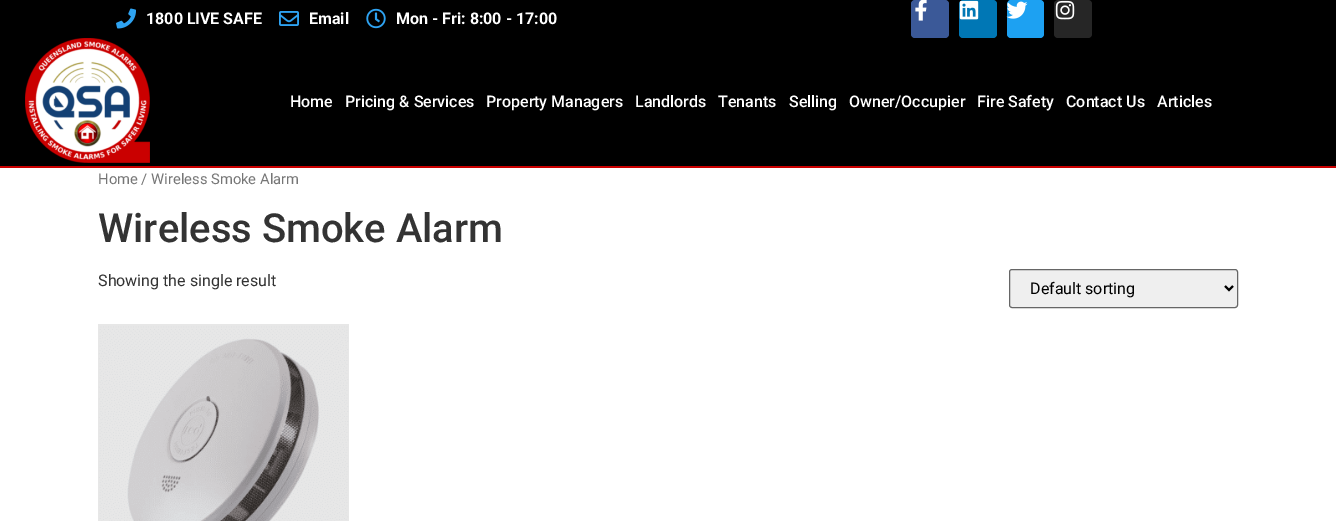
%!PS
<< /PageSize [1336 521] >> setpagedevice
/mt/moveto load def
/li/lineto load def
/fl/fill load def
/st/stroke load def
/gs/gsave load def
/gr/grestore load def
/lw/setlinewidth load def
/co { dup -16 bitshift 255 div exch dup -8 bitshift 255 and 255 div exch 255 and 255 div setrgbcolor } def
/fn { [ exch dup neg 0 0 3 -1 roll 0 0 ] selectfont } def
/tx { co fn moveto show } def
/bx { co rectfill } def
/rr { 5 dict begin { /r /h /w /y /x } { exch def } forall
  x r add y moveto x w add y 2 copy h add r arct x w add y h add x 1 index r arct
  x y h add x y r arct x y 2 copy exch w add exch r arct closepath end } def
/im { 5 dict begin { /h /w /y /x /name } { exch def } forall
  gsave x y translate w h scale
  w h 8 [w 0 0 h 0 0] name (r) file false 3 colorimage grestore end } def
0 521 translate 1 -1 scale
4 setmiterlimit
0 0 1336 521 16#FFFFFF bx
0 0 1336 166 16#000000 bx
(media/1.raw) 116 8 20 21 im
(media/2.raw) 279 11 20 15 im
(media/3.raw) 366 8 20 21 im
16#3B5998 co
911 0 38 38 4 rr fl
(media/4.raw) 915 0 12 21 im
16#0077B5 co
959 0 38 38 4 rr fl
(media/5.raw) 959 0 20 20 im
16#1DA1F2 co
1007 0 37 38 4 rr fl
(media/6.raw) 1006 1 22 18 im
16#262626 co
1054 0 38 38 4 rr fl
(media/7.raw) 1055 0 20 20 im
0 166 1336 2 16#CA0000 bx
(media/8.raw) 25 38 125 125 im
16#EFEFEF co
1009.5 269.5 228 38 2.5 rr gs fl gr
16#666666 co
st
16#000000 co
2 lw
1225 286 mt 1229 290 li 1233 286 li st
(media/9.raw) 98 324 251 197 im
(1800 LIVE SAFE) 146 24 /Roboto-Bold 16 16#FFFFFF tx
(Email) 309 24 /Roboto-Bold 16 16#FFFFFF tx
(Mon - Fri: 8:00 - 17:00) 396 24 /Roboto-Bold 16 16#FFFFFF tx
(Home) 290 107 /Roboto-Medium 16 16#FFFFFF tx
(Pricing & Services) 345 107 /Roboto-Medium 16 16#FFFFFF tx
(Property Managers) 486 107 /Roboto-Medium 16 16#FFFFFF tx
(Landlords) 635 107 /Roboto-Medium 16 16#FFFFFF tx
(Tenants) 718 107 /Roboto-Medium 16 16#FFFFFF tx
(Selling) 789 107 /Roboto-Medium 16 16#FFFFFF tx
(Owner/Occupier) 849 107 /Roboto-Medium 16 16#FFFFFF tx
(Fire Safety) 977 107 /Roboto-Medium 16 16#FFFFFF tx
(Contact Us) 1066 107 /Roboto-Medium 16 16#FFFFFF tx
(Articles) 1157 107 /Roboto-Medium 16 16#FFFFFF tx
(Home / Wireless Smoke Alarm) 98 184 /Roboto-Regular 14.75 16#767676 tx
(Wireless Smoke Alarm) 98 242 /Roboto-Medium 40 16#333333 tx
(Showing the single result) 98 286 /Roboto-Regular 16 16#333333 tx
(Default sorting) 1030 294 /Roboto-Regular 16 16#000000 tx
showpage
